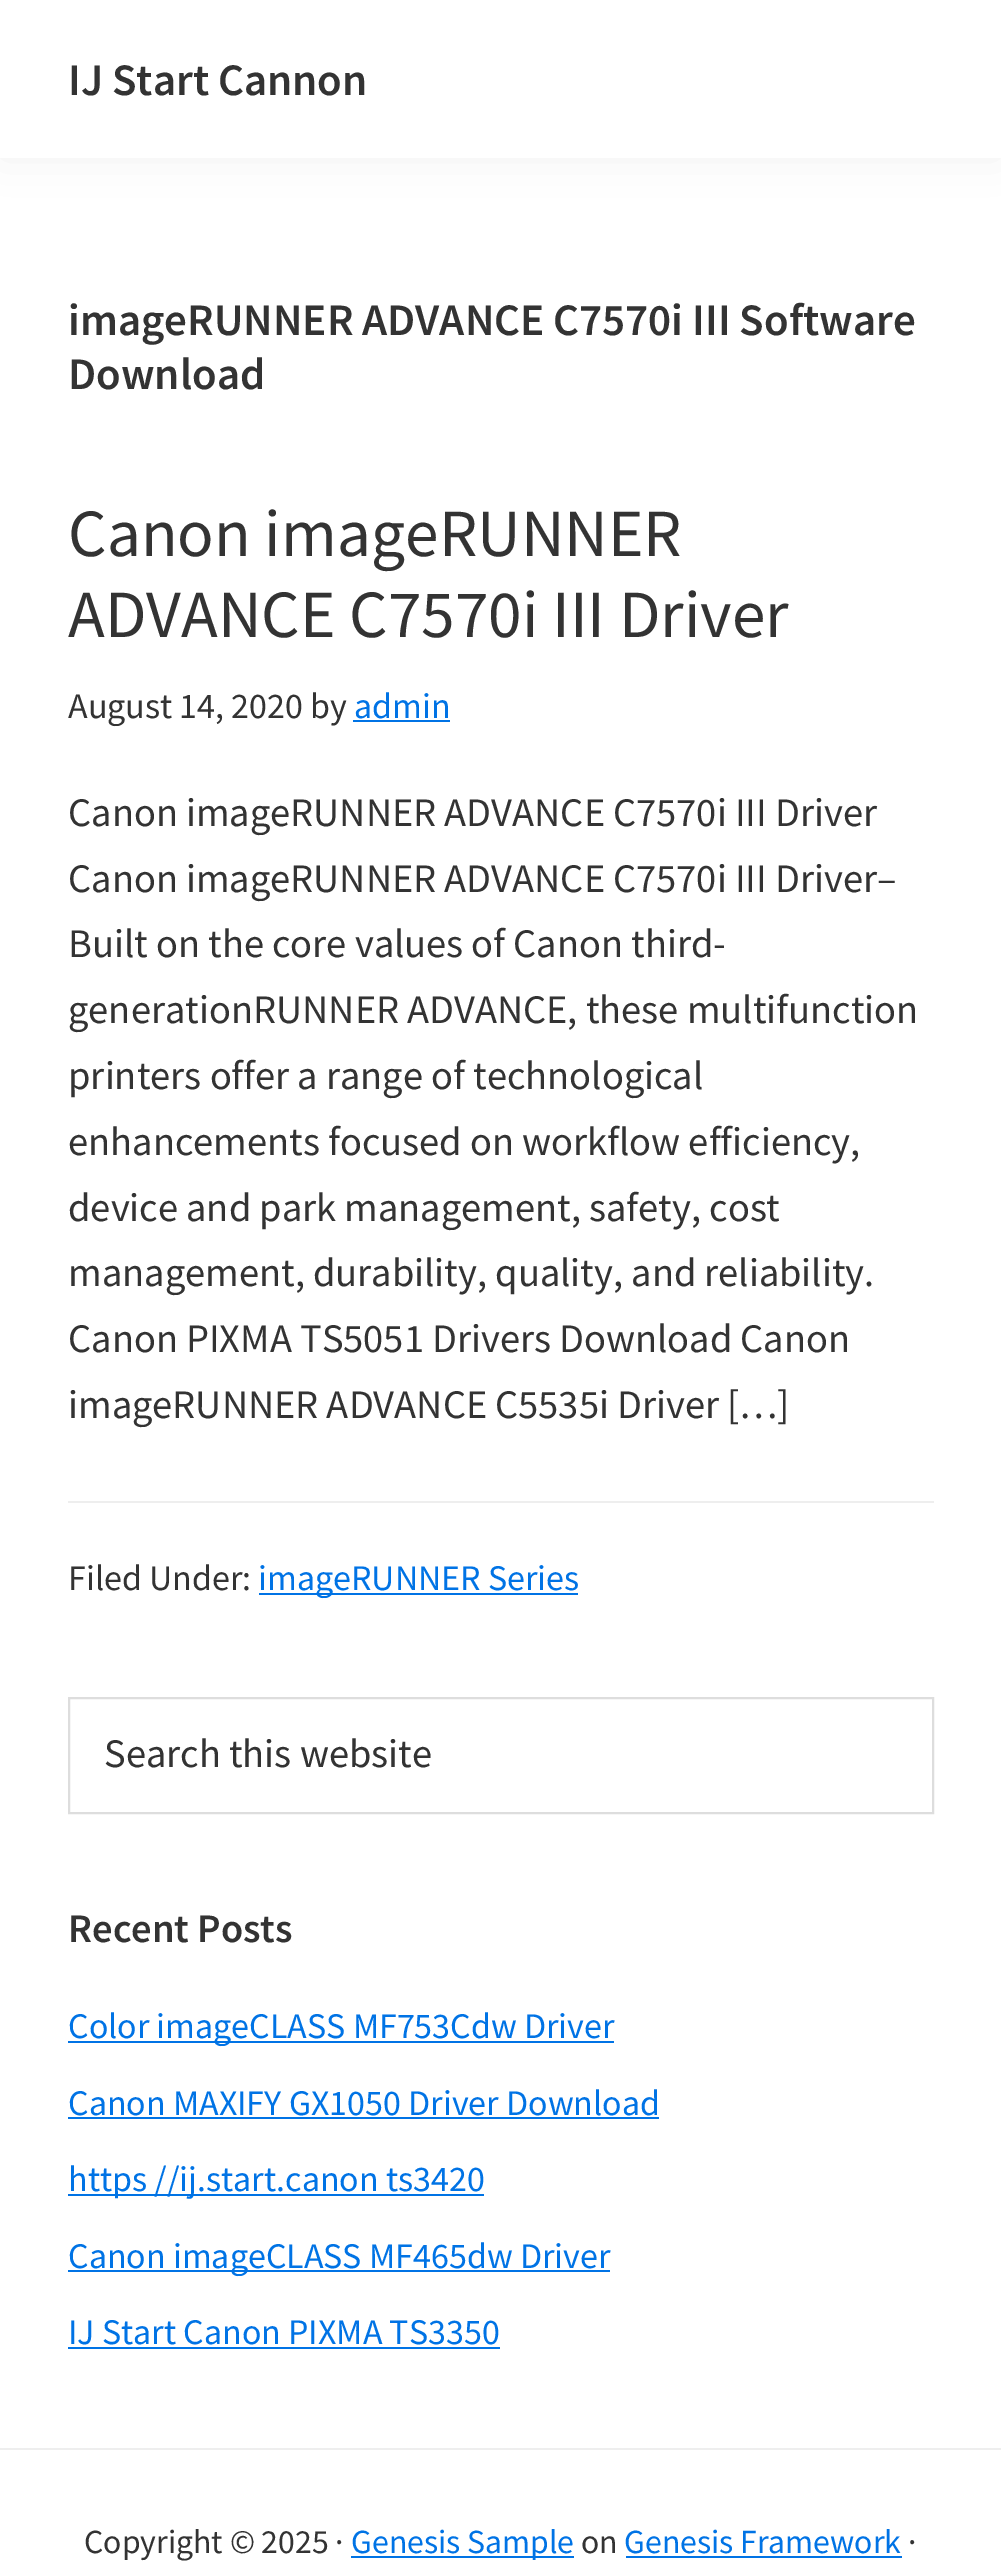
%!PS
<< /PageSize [1001 2567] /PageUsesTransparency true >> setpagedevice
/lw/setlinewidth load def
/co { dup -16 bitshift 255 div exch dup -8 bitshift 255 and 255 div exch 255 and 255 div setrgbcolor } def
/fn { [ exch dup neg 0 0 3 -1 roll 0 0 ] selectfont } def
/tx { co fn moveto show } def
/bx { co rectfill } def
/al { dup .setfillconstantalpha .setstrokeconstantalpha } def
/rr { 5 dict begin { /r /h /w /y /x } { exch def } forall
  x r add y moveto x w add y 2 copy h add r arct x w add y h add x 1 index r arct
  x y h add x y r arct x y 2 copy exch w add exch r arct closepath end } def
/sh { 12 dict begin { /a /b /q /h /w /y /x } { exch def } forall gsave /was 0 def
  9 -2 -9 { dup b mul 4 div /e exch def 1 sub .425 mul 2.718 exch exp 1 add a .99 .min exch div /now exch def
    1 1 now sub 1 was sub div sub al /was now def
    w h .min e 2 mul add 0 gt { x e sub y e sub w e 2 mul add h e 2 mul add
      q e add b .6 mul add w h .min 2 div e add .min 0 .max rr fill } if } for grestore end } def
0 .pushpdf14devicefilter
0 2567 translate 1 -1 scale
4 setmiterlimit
0 0 1001 2567 16#FFFFFF bx
16#000000 co
0 0 1001 158 0 22.5 .05 sh
0 0 1001 158 16#FFFFFF bx
353 720 97 2 16#0073E5 bx
68 1501 866 2 16#EEEEEE bx
259 1593 319 2 16#0073E5 bx
16#DDDDDD co
2 lw
69 1698 864 115 rectstroke
68 2041 546 2 16#0073E5 bx
68 2117 591 2 16#0073E5 bx
68 2194 416 2 16#0073E5 bx
68 2270 542 2 16#0073E5 bx
68 2347 432 2 16#0073E5 bx
0 2448 1001 2 16#EEEEEE bx
351 2556 223 2 16#0073E5 bx
626 2556 276 2 16#0073E5 bx
(IJ Start Cannon) 68 95 /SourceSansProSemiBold-SemiBold 45 16#333333 tx
(imageRUNNER ADVANCE C7570i III Software) 68 335 /SourceSansProSemiBold-SemiBold 45 16#333333 tx
(Download) 68 389 /SourceSansProSemiBold-SemiBold 45 16#333333 tx
(Canon imageRUNNER) 68 556 /SourceSansPro-Regular 67.5 16#333333 tx
(ADVANCE C7570i III Driver) 68 637 /SourceSansPro-Regular 67.5 16#333333 tx
(August 14, 2020 by) 68 718 /SourceSansPro-Regular 36 16#333333 tx
(admin) 354 718 /SourceSansPro-Regular 36 16#0073E5 tx
(Canon imageRUNNER ADVANCE C7570i III Driver) 68 826 /SourceSansPro-Regular 40.5 16#333333 tx
(Canon imageRUNNER ADVANCE C7570i III Driver–) 68 892 /SourceSansPro-Regular 40.5 16#333333 tx
(Built on the core values of Canon third-) 68 957 /SourceSansPro-Regular 40.5 16#333333 tx
(generationRUNNER ADVANCE, these multifunction) 68 1023 /SourceSansPro-Regular 40.5 16#333333 tx
(printers offer a range of technological) 68 1089 /SourceSansPro-Regular 40.5 16#333333 tx
(enhancements focused on workflow efficiency,) 68 1155 /SourceSansPro-Regular 40.5 16#333333 tx
(device and park management, safety, cost) 68 1221 /SourceSansPro-Regular 40.5 16#333333 tx
(management, durability, quality, and reliability.) 68 1286 /SourceSansPro-Regular 40.5 16#333333 tx
(Canon PIXMA TS5051 Drivers Download Canon) 68 1352 /SourceSansPro-Regular 40.5 16#333333 tx
(imageRUNNER ADVANCE C5535i Driver […]) 68 1418 /SourceSansPro-Regular 40.5 16#333333 tx
(Filed Under:) 68 1590 /SourceSansPro-Regular 36 16#333333 tx
(imageRUNNER Series) 258 1590 /SourceSansPro-Regular 36 16#0073E5 tx
(Search this website) 104 1767 /SourceSansPro-Regular 40.5 16#333333 tx
(Recent Posts) 68 1942 /SourceSansProSemiBold-SemiBold 40.5 16#333333 tx
(Color imageCLASS MF753Cdw Driver) 68 2038 /SourceSansPro-Regular 36 16#0073E5 tx
(Canon MAXIFY GX1050 Driver Download) 68 2115 /SourceSansPro-Regular 36 16#0073E5 tx
(https //ij.start.canon ts3420) 68 2191 /SourceSansPro-Regular 36 16#0073E5 tx
(Canon imageCLASS MF465dw Driver) 68 2268 /SourceSansPro-Regular 36 16#0073E5 tx
(IJ Start Canon PIXMA TS3350) 68 2344 /SourceSansPro-Regular 36 16#0073E5 tx
(Copyright © 2025 ·) 84 2553 /SourceSansPro-Regular 33.75 16#333333 tx
(Genesis Sample) 351 2553 /SourceSansPro-Regular 33.75 16#0073E5 tx
(on) 581 2553 /SourceSansPro-Regular 33.75 16#333333 tx
(Genesis Framework) 624 2553 /SourceSansPro-Regular 33.75 16#0073E5 tx
(·) 908 2553 /SourceSansPro-Regular 33.75 16#333333 tx
.poppdf14devicefilter showpage
